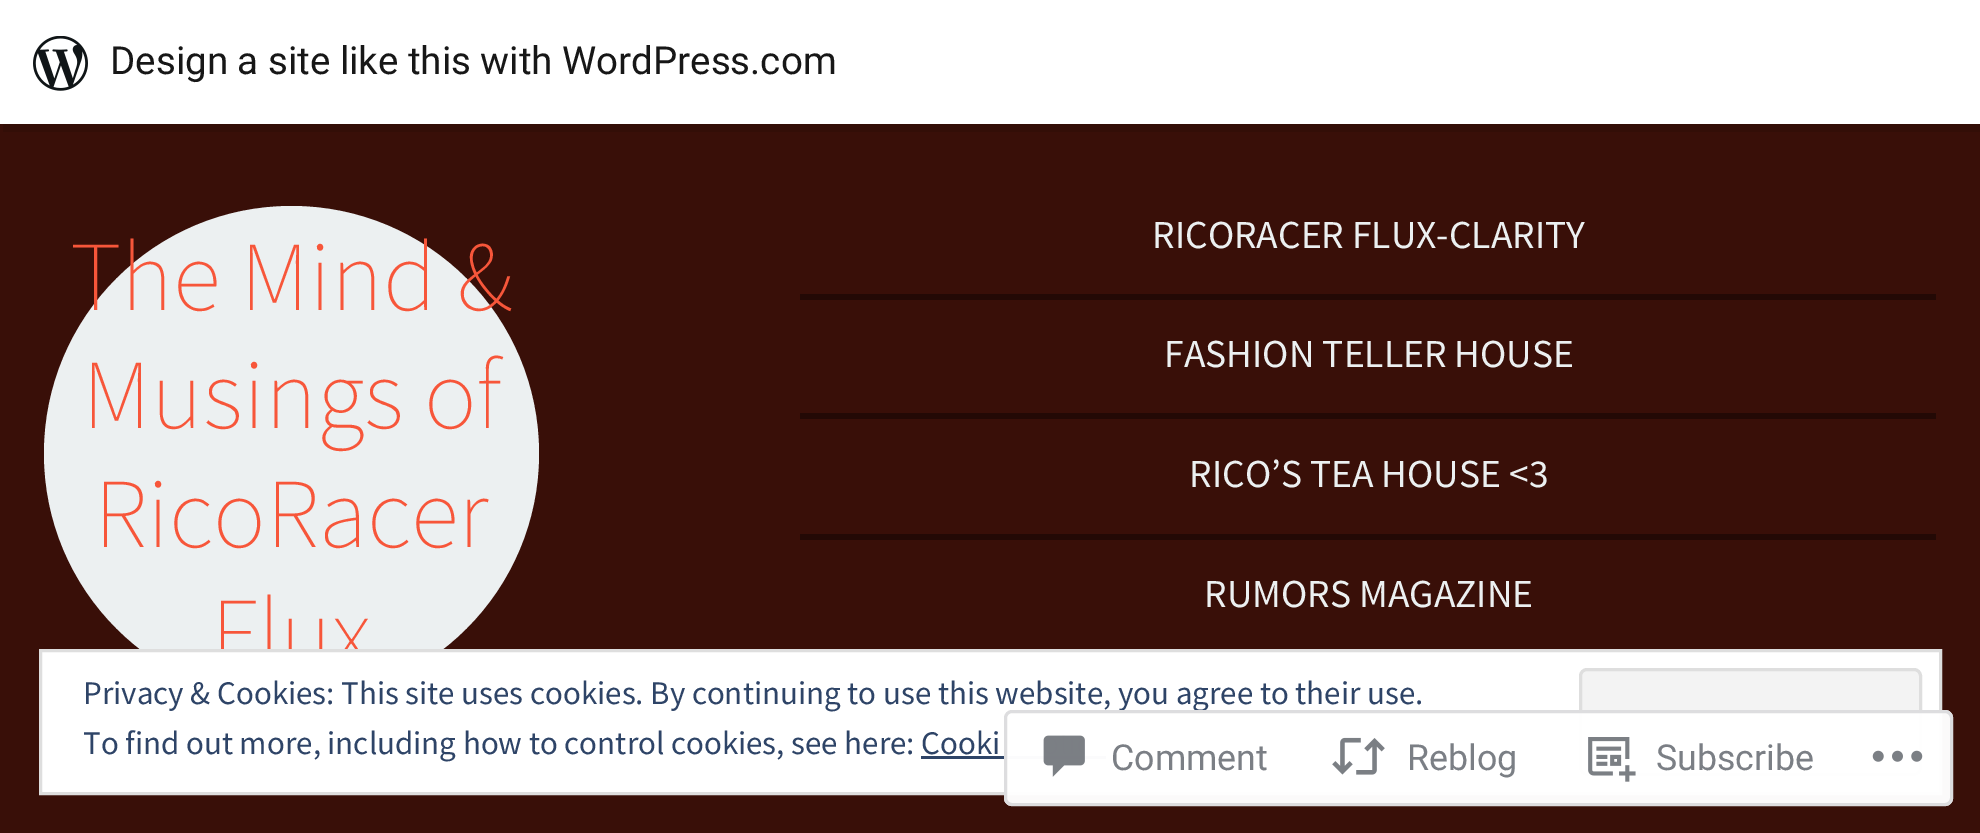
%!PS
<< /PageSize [1980 833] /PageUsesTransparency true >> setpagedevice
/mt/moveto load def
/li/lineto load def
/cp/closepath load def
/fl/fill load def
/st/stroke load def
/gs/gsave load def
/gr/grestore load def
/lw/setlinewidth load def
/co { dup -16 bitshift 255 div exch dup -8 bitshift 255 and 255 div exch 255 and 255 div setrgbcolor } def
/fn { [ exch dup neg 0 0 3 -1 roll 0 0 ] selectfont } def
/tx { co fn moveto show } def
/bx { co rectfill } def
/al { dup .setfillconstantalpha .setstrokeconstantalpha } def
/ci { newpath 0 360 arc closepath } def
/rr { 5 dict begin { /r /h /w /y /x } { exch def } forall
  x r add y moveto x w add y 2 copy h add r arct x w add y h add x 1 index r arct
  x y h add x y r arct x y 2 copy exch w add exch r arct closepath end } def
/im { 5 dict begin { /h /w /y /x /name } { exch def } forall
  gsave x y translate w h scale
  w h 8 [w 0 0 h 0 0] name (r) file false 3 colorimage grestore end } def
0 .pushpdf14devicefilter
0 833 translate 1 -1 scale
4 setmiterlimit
0 0 1980 833 16#390F08 bx
16#330E07 co
3 124 mt 3 132 li 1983 132 li 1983 8 li 1980 8 li 1980 124 li cp fl
0 0 1980 124 16#FFFFFF bx
(media/1.raw) 33 36 55 55 im
16#ECF0F1 co
291.5 453.5 247.5 ci fl
800 294 1136 6 16#230905 bx
800 413 1136 6 16#230905 bx
800 534 1136 6 16#230905 bx
(Design a site like this with WordPress.com) 110 74 /Roboto-Regular 38.5 16#171717 tx
(The Mind &) 70 310 /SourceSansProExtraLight-ExtraLight 99 16#F7563A tx
(Musings of) 82 428 /SourceSansProExtraLight-ExtraLight 99 16#F7563A tx
(RicoRacer) 94 547 /SourceSansProExtraLight-ExtraLight 99 16#F7563A tx
(Flux) 211 666 /SourceSansProExtraLight-ExtraLight 99 16#F7563A tx
(RICORACER FLUX-CLARITY) 1152 248 /SourceSansPro-Regular 39.6 16#ECF0F1 tx
(FASHION TELLER HOUSE) 1164 367 /SourceSansPro-Regular 39.6 16#ECF0F1 tx
(RICO’S TEA HOUSE <3) 1189 487 /SourceSansPro-Regular 39.6 16#ECF0F1 tx
(RUMORS MAGAZINE) 1204 607 /SourceSansPro-Regular 39.6 16#ECF0F1 tx
16#FFFFFF co
40.5 650.5 mt 1940.5 650.5 li 1940.5 793.5 li 40.5 793.5 li cp gs fl gr
16#DEDEDE co
3 lw
st
(Privacy & Cookies: This site uses cookies. By continuing to use this website, you agree to their use.) 83 704 /SourceSansPro-Regular 33 16#2E4467 tx
16#F3F3F3 co
1580.5 669.5 340 105 6.5 rr gs fl gr
16#DEDEDE co
st
(To find out more, including how to control cookies, see here: Cooki) 83 754 /SourceSansPro-Regular 33 16#2E4467 tx
921 756 185 3 16#2E4467 bx
0.98 al
16#FFFFFF co
1004 710 949 96 8 rr fl
16#DCDCDE co
1005.5 711.5 946 93 6.5 rr st
1 al
(media/2.raw) 1043 735 42 42 im
(Comment) 1111 770 /Roboto-Regular 35.75 16#7B7F85 tx
(media/3.raw) 1332 737 53 38 im
(Reblog) 1407 770 /Roboto-Regular 35.75 16#7B7F85 tx
(media/4.raw) 1588 737 48 45 im
(Subscribe) 1656 770 /Roboto-Regular 35.75 16#7B7F85 tx
(media/5.raw) 1872 750 51 12 im
.poppdf14devicefilter showpage
